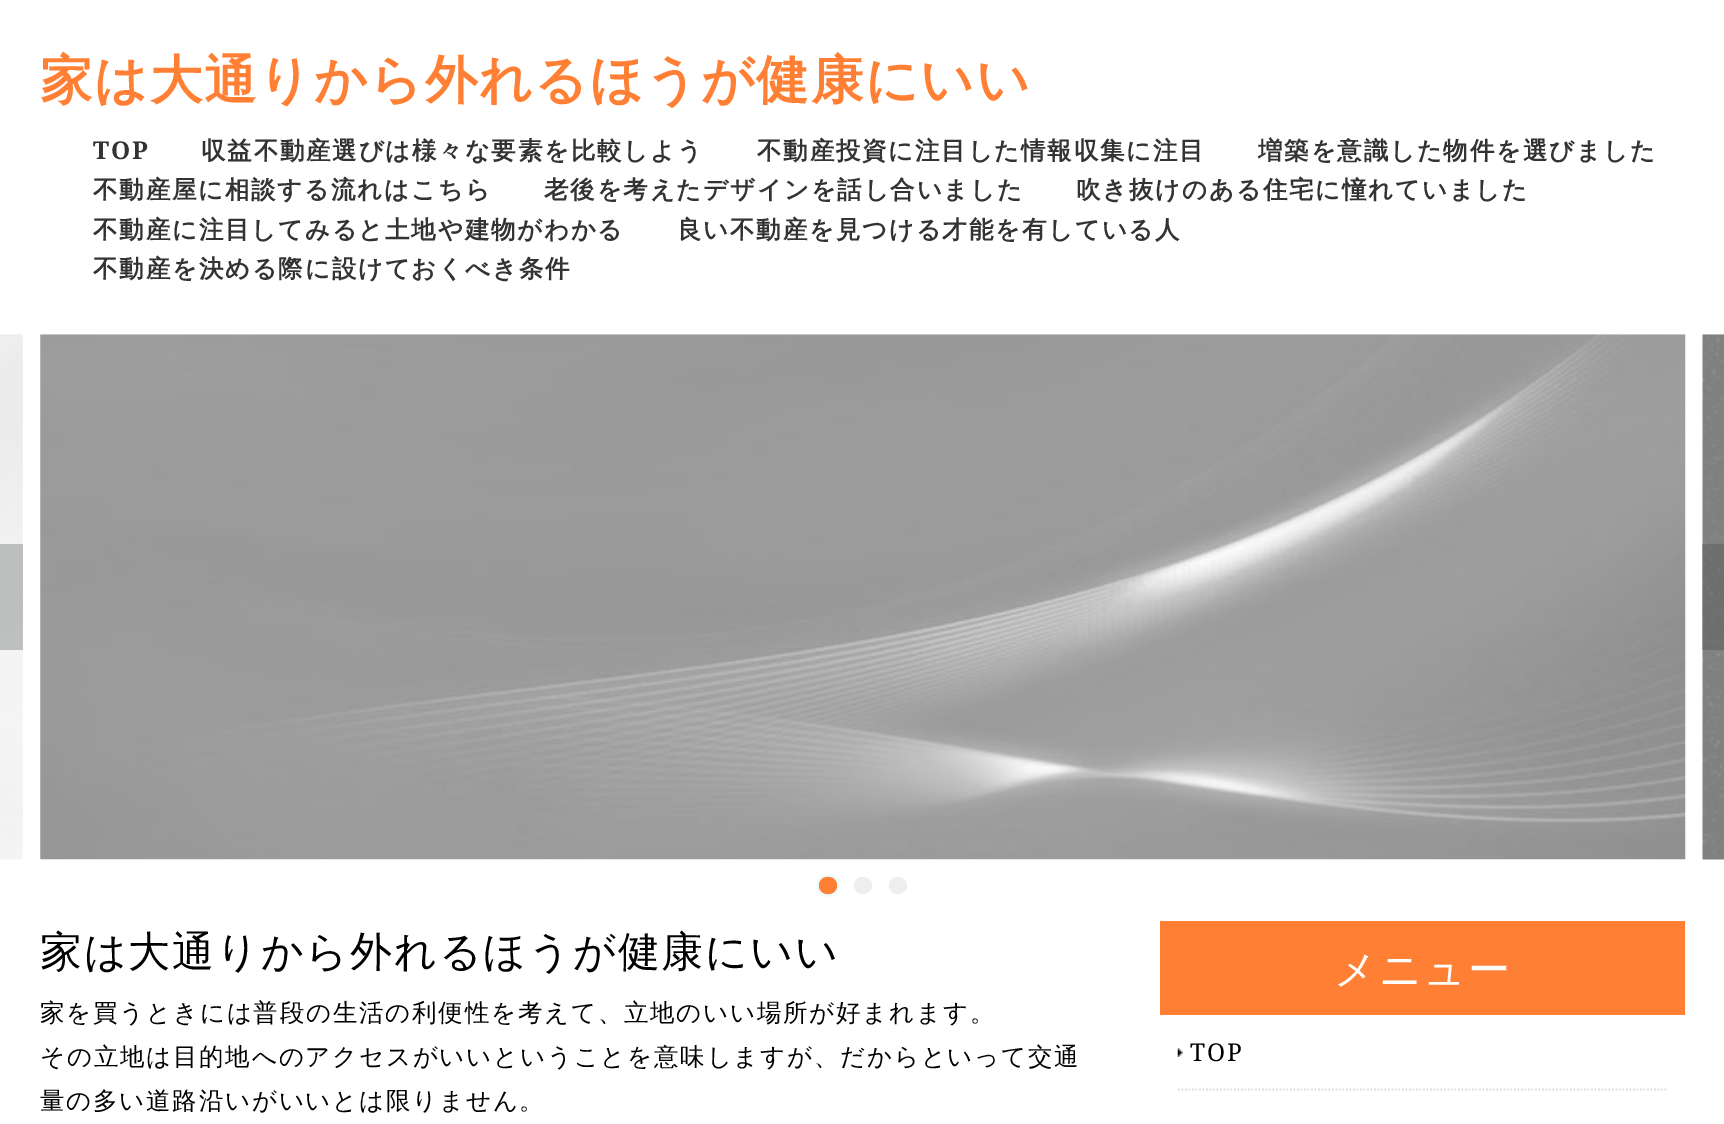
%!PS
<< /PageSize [1724 1124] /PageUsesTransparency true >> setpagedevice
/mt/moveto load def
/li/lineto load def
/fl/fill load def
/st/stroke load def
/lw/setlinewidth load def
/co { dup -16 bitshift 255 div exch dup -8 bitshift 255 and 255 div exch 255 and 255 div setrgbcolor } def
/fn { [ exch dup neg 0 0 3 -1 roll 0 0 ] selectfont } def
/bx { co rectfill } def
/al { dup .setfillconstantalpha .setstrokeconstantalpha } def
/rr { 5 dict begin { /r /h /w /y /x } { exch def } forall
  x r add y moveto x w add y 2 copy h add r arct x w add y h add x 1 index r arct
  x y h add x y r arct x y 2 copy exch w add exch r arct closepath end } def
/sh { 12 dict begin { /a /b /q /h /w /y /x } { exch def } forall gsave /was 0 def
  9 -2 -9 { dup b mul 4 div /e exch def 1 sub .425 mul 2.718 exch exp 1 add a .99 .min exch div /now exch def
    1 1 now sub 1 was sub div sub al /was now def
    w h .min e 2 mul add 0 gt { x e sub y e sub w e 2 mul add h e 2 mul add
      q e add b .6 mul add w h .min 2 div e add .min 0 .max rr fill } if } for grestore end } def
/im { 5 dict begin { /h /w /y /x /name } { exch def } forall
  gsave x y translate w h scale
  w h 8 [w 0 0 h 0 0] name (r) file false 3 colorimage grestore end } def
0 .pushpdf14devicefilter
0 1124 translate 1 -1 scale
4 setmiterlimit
0 0 1724 1124 16#FFFFFF bx
(media/1.raw) 0 334 23 526 im
(media/2.raw) 40 334 1646 526 im
(media/3.raw) 1702 334 22 526 im
0.3 al
0 544 23 106 16#424949 bx
1702 544 22 106 16#424949 bx
1 al
16#85D1C6 co
819 877 18 17 8.5 2 .5 sh
16#FF8034 co
819 877 18 17 8.5 rr fl
16#EEEEEE co
854 877 18 17 8.5 rr fl
889 877 18 17 8.5 rr fl
1160 921 525 94 16#FF8034 bx
(media/4.raw) 1177 1048 6 9 im
16#DDDDDD co
1.8 lw
[1.75 1.75] 0 setdash
1178 1089.5 mt 1668 1089.5 li st
/WenQuanYiZenHei-Bold 52.5 fn
16#FF8034 co
40 98 mt 1.75 0 (家は大通りから外れるほうが健康にいい) ashow
/NotoSerif-Bold 24.5 fn
16#333333 co
93 159 mt 1.75 0 (TOP) ashow
/WenQuanYiZenHei-Bold 24.5 fn
201 159 mt 1.75 0 (収益不動産選びは様々な要素を比較しよう) ashow
757 159 mt 1.75 0 (不動産投資に注目した情報収集に注目) ashow
1258 159 mt 1.75 0 (増築を意識した物件を選びました) ashow
93 198 mt 1.75 0 (不動産屋に相談する流れはこちら) ashow
544 198 mt 1.75 0 (老後を考えたデザインを話し合いました) ashow
1076 198 mt 1.75 0 (吹き抜けのある住宅に憧れていました) ashow
93 238 mt 1.75 0 (不動産に注目してみると土地や建物がわかる) ashow
677 238 mt 1.75 0 (良い不動産を見つける才能を有している人) ashow
93 277 mt 1.75 0 (不動産を決める際に設けておくべき条件) ashow
/WenQuanYiZenHei-Medium 42 fn
16#000000 co
40 966 mt 1.75 0 (家は大通りから外れるほうが健康にいい) ashow
/WenQuanYiZenHei-Medium 24.5 fn
40 1021 mt 1.75 0 (家を買うときには普段の生活の利便性を考えて、立地のいい場所が好まれます。) ashow
40 1065 mt 1.75 0 (その立地は目的地へのアクセスがいいということを意味しますが、だからといって交通) ashow
40 1109 mt 1.75 0 (量の多い道路沿いがいいとは限りません。) ashow
/WenQuanYiZenHei-Medium 42 fn
16#FFFFFF co
1334 984 mt 1.75 0 (メニュー) ashow
/NotoSerif-Regular 24.5 fn
16#000000 co
1190 1061 mt 1.75 0 (TOP) ashow
.poppdf14devicefilter showpage
